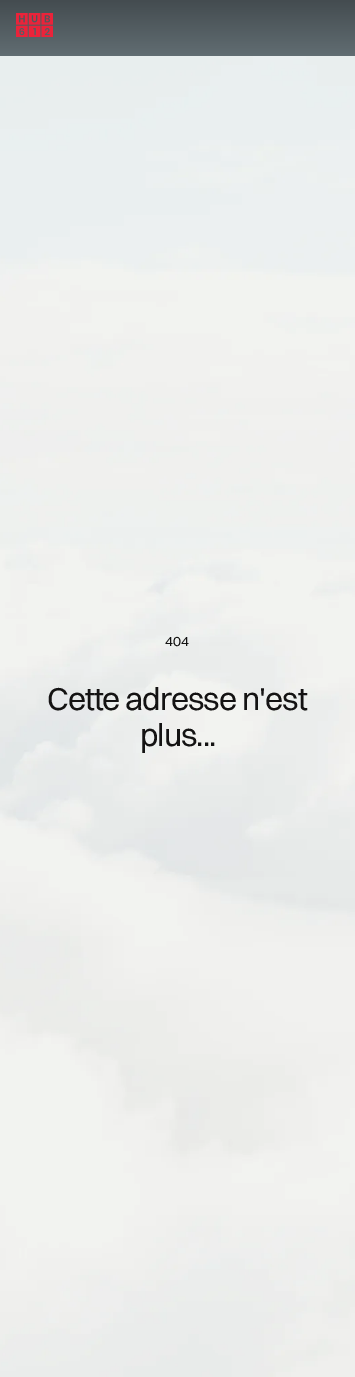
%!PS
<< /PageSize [355 1377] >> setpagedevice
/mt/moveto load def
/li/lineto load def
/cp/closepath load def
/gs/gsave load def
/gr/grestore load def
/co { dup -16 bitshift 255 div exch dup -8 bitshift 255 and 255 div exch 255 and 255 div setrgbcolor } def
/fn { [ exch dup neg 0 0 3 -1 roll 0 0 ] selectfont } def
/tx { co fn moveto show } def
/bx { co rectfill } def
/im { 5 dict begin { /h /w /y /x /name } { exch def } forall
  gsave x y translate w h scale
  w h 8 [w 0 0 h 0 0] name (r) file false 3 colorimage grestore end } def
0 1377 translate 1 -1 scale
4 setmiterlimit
0 0 355 1377 16#FFFFFF bx
gs 0 0 mt 355 0 li 355 56 li 0 56 li cp clip newpath
<< /ShadingType 2 /ColorSpace /DeviceRGB /Coords [178 0 178 56] /Extend [true true] /Function << /FunctionType 2 /Domain [0 1] /C0 [.267 .298 .314] /C1 [.38 .427 .447] /N 1 >> >> shfill gr
(media/1.raw) 16 13 37 24 im
(media/2.raw) 0 56 355 1321 im
(404) 165 646 /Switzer-Regular 14 16#141313 tx
/Switzer-Regular 32 fn
47 710 mt -1 0 (Cette adresse n'est) ashow
140 746 mt -1 0 (plus...) ashow
showpage
